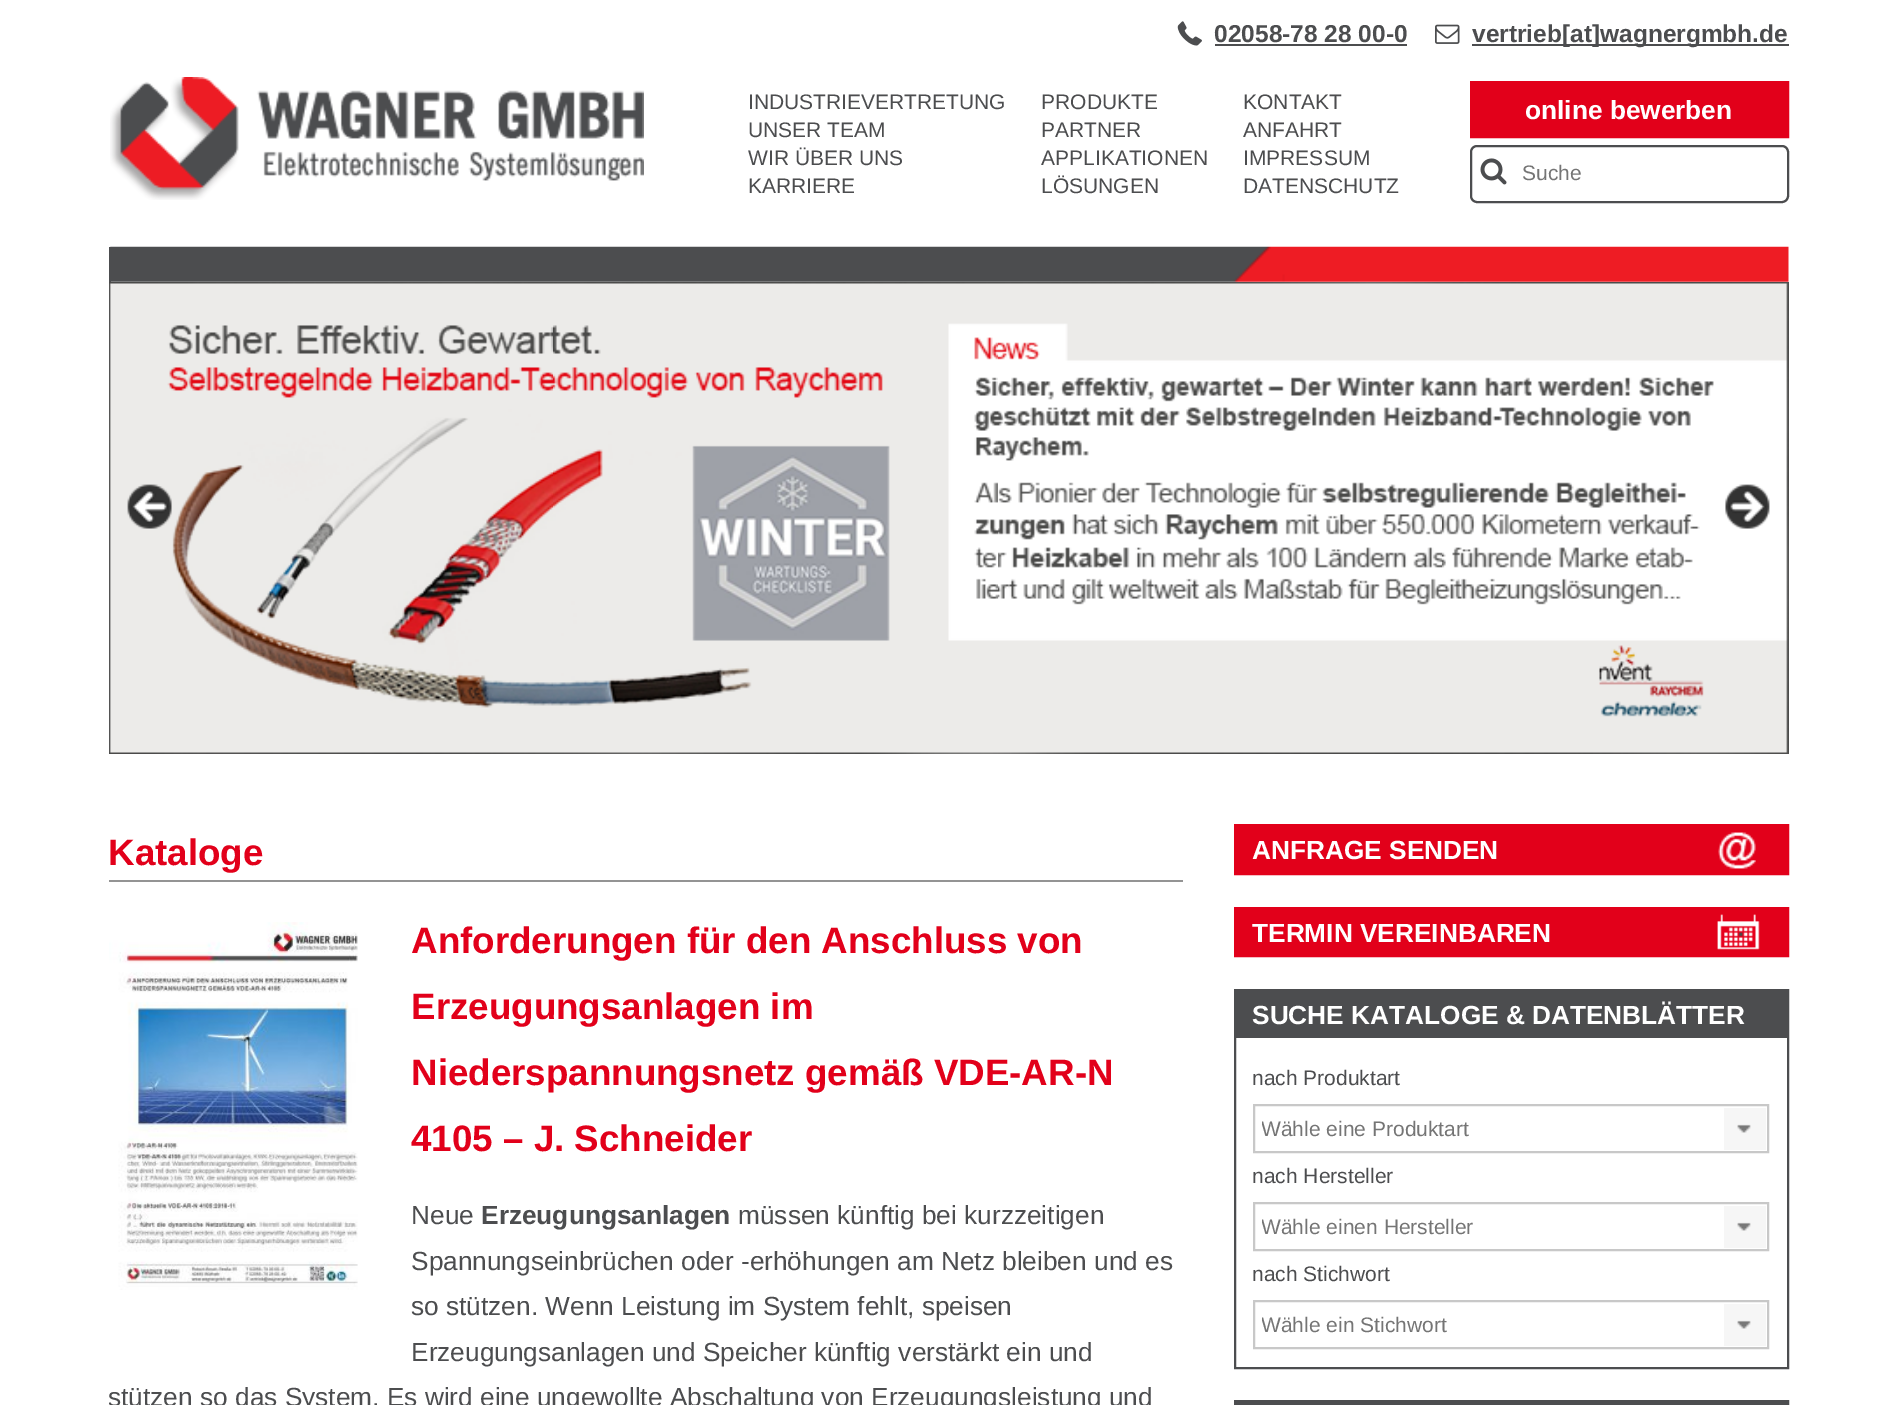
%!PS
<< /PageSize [1894 1405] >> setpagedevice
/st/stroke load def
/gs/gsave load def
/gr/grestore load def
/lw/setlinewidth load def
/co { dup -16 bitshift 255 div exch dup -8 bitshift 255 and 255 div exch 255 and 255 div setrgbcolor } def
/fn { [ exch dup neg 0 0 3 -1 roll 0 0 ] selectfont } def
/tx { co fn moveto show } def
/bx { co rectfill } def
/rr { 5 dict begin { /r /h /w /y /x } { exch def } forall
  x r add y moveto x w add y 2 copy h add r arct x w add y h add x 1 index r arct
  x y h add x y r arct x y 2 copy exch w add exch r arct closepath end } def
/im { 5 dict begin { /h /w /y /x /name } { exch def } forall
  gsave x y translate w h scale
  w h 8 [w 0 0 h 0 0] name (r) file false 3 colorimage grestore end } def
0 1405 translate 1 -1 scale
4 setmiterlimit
0 0 1894 1405 16#FFFFFF bx
(media/1.raw) 1177 21 25 25 im
1215 44 192 2 16#4C4D4F bx
(media/2.raw) 1435 24 25 20 im
1472 44 317 2 16#4C4D4F bx
(media/3.raw) 110 77 534 123 im
16#E2001A co
2 lw
1471 82 317 55 rectstroke
1472 83 315 53 16#E2001A bx
16#4C4D4F co
1471 146 317 56 6 rr st
(media/4.raw) 1480 158 27 27 im
(media/5.raw) 110 246 1679 36 im
109 247 2 35 16#4C4D4F bx
(media/6.raw) 109 282 1680 472 im
(media/7.raw) 127 484 45 45 im
(media/8.raw) 1725 484 45 45 im
109 880 1074 2 16#949494 bx
(media/9.raw) 109 922 249 368 im
16#E2001A co
1235 825 553 49 rectstroke
1236 826 551 47 16#E2001A bx
(media/10.raw) 1718 832 38 37 im
1235 908 553 48 rectstroke
1236 909 551 46 16#E2001A bx
(media/11.raw) 1717 914 43 36 im
16#4C4D4F co
1235 990 553 378 rectstroke
1236 991 551 47 16#4C4D4F bx
16#C8C8C8 co
1254 1105 514 47 rectstroke
1724 1108 42 42 16#F6F6F6 bx
(media/12.raw) 1737 1124 14 9 im
16#C8C8C8 co
1254 1203 514 47 rectstroke
1724 1206 42 42 16#F6F6F6 bx
(media/12.raw) 1737 1222 14 9 im
16#C8C8C8 co
1254 1301 514 47 rectstroke
1724 1304 42 42 16#F6F6F6 bx
(media/12.raw) 1737 1320 14 9 im
16#4C4D4F co
1235 1401 553 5 rectstroke
1236 1402 551 3 16#4C4D4F bx
(02058-78 28 00-0) 1214 42 /LiberationSans-Bold 24.5 16#4C4D4F tx
(vertrieb[at]wagnergmbh.de) 1472 42 /LiberationSans-Bold 24.5 16#4C4D4F tx
(INDUSTRIEVERTRETUNG) 748 109 /LiberationSans-Regular 21 16#4C4D4F tx
(UNSER TEAM) 748 137 /LiberationSans-Regular 21 16#4C4D4F tx
(WIR ÜBER UNS) 748 165 /LiberationSans-Regular 21 16#4C4D4F tx
(KARRIERE) 748 193 /LiberationSans-Regular 21 16#4C4D4F tx
(PRODUKTE) 1041 109 /LiberationSans-Regular 21 16#4C4D4F tx
(PARTNER) 1041 137 /LiberationSans-Regular 21 16#4C4D4F tx
(APPLIKATIONEN) 1041 165 /LiberationSans-Regular 21 16#4C4D4F tx
(LÖSUNGEN) 1041 193 /LiberationSans-Regular 21 16#4C4D4F tx
(KONTAKT) 1243 109 /LiberationSans-Regular 21 16#4C4D4F tx
(ANFAHRT) 1243 137 /LiberationSans-Regular 21 16#4C4D4F tx
(IMPRESSUM) 1243 165 /LiberationSans-Regular 21 16#4C4D4F tx
(DATENSCHUTZ) 1243 193 /LiberationSans-Regular 21 16#4C4D4F tx
(online bewerben) 1525 119 /LiberationSans-Bold 26.25 16#FFFFFF tx
(Suche) 1522 180 /LiberationSans-Regular 21 16#757575 tx
(Kataloge) 108 865 /LiberationSans-Bold 36.75 16#E2001A tx
(Anforderungen für den Anschluss von) 411 953 /LiberationSans-Bold 36.75 16#E2001A tx
(Erzeugungsanlagen im) 411 1019 /LiberationSans-Bold 36.75 16#E2001A tx
(Niederspannungsnetz gemäß VDE-AR-N) 411 1085 /LiberationSans-Bold 36.75 16#E2001A tx
(4105 – J. Schneider) 411 1151 /LiberationSans-Bold 36.75 16#E2001A tx
(Neue) 411 1224 /LiberationSans-Regular 26.25 16#4C4D4F tx
(Erzeugungsanlagen) 481 1224 /LiberationSans-Bold 26.25 16#4C4D4F tx
(müssen künftig bei kurzzeitigen) 738 1224 /LiberationSans-Regular 26.25 16#4C4D4F tx
(Spannungseinbrüchen oder -erhöhungen am Netz bleiben und es) 411 1270 /LiberationSans-Regular 26.25 16#4C4D4F tx
(so stützen. Wenn Leistung im System fehlt, speisen) 411 1315 /LiberationSans-Regular 26.25 16#4C4D4F tx
(Erzeugungsanlagen und Speicher künftig verstärkt ein und) 411 1361 /LiberationSans-Regular 26.25 16#4C4D4F tx
gs
109 882 1074 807 rectclip
(stützen so das System. Es wird eine ungewollte Abschaltung von Erzeugungsleistung und) 108 1406 /LiberationSans-Regular 26.25 16#4C4D4F tx
gr
(ANFRAGE SENDEN) 1252 859 /LiberationSans-Bold 26.25 16#FFFFFF tx
(TERMIN VEREINBAREN) 1252 942 /LiberationSans-Bold 26.25 16#FFFFFF tx
(SUCHE KATALOGE & DATENBLÄTTER) 1252 1024 /LiberationSans-Bold 26.25 16#FFFFFF tx
(nach Produktart) 1252 1085 /LiberationSans-Regular 21 16#4C4D4F tx
gs
1262 1117 499 24 rectclip
(Wähle eine Produktart) 1261 1136 /LiberationSans-Regular 21 16#757575 tx
gr
(nach Hersteller) 1252 1183 /LiberationSans-Regular 21 16#4C4D4F tx
gs
1262 1215 499 24 rectclip
(Wähle einen Hersteller) 1261 1234 /LiberationSans-Regular 21 16#757575 tx
gr
(nach Stichwort) 1252 1281 /LiberationSans-Regular 21 16#4C4D4F tx
gs
1262 1313 499 24 rectclip
(Wähle ein Stichwort) 1261 1332 /LiberationSans-Regular 21 16#757575 tx
gr
showpage
